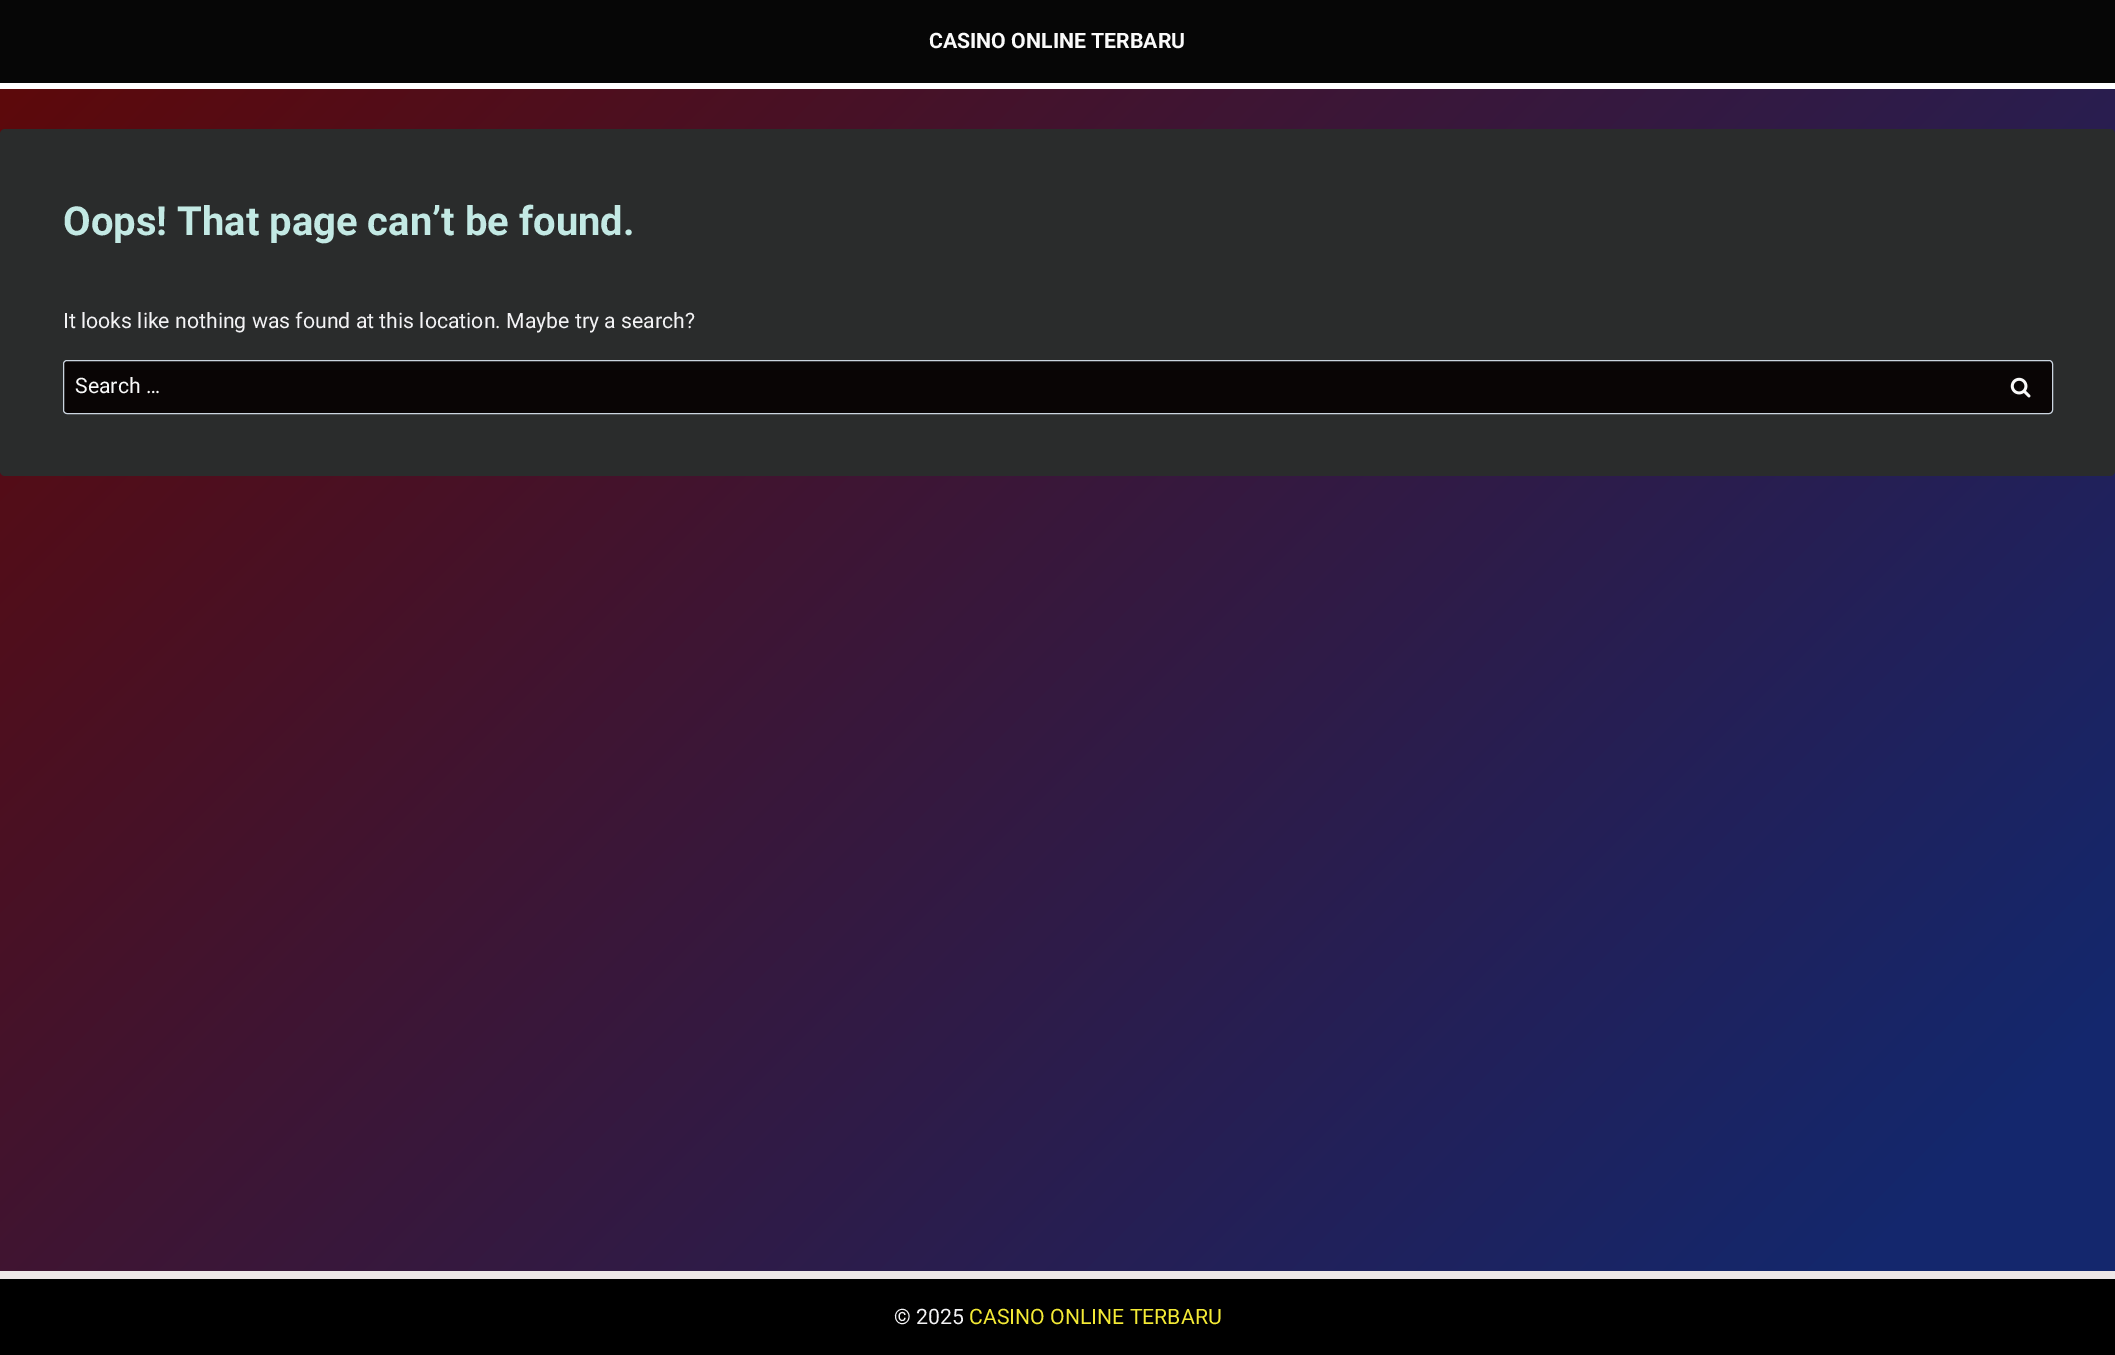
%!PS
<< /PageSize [2115 1355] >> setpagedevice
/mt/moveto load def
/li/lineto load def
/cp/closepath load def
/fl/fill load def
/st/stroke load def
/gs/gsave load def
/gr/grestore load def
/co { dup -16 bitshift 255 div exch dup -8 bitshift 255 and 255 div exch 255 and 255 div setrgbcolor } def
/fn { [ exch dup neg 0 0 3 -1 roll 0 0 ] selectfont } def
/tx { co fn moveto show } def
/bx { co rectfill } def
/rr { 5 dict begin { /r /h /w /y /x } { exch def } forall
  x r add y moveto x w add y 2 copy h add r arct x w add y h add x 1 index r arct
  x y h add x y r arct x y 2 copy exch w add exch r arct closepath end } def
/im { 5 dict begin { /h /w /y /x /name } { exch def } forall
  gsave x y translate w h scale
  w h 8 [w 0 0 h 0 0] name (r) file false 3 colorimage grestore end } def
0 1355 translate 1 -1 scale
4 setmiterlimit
0 0 2115 1355 16#FFFFFF bx
gs 0 89 mt 2115 89 li 2115 1271 li 0 1271 li cp clip newpath
<< /ShadingType 2 /ColorSpace /DeviceRGB /Coords [190 -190 1925 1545] /Extend [true true] /Function << /FunctionType 3 /Domain [0 1] /Functions [<< /FunctionType 2 /Domain [0 1] /C0 [.373 .031 .031] /C1 [.078 .153 .427] /N 1 >> << /FunctionType 2 /Domain [0 1] /C0 [.078 .153 .427] /C1 [.078 .153 .427] /N 1 >>] /Bounds [.9] /Encode [0 1 0 1] >> >> shfill gr
0 0 2115 83 16#060606 bx
16#2A2C2C co
0 129 2115 347 5 rr fl
16#090505 co
63.5 360.5 1989 53 3.5 rr gs fl gr
16#CBD5E0 co
st
(media/1.raw) 2010 377 21 21 im
0 1279 2115 76 16#000000 bx
0 1271 2115 8 16#EDE7E7 bx
(CASINO ONLINE TERBARU) 929 48 /Roboto-Bold 21.25 16#FAFAFA tx
(Oops! That page can’t be found.) 63 235 /Roboto-Bold 40 16#C3E9E4 tx
(It looks like nothing was found at this location. Maybe try a search?) 63 328 /Roboto-Regular 21.25 16#F3F3F5 tx
(Search …) 75 393 /Roboto-Regular 21.25 16#FAFAFA tx
(© 2025) 894 1324 /Roboto-Regular 21.25 16#F3F3F5 tx
(CASINO ONLINE TERBARU) 969 1324 /Roboto-Regular 21.25 16#F4EA35 tx
showpage
